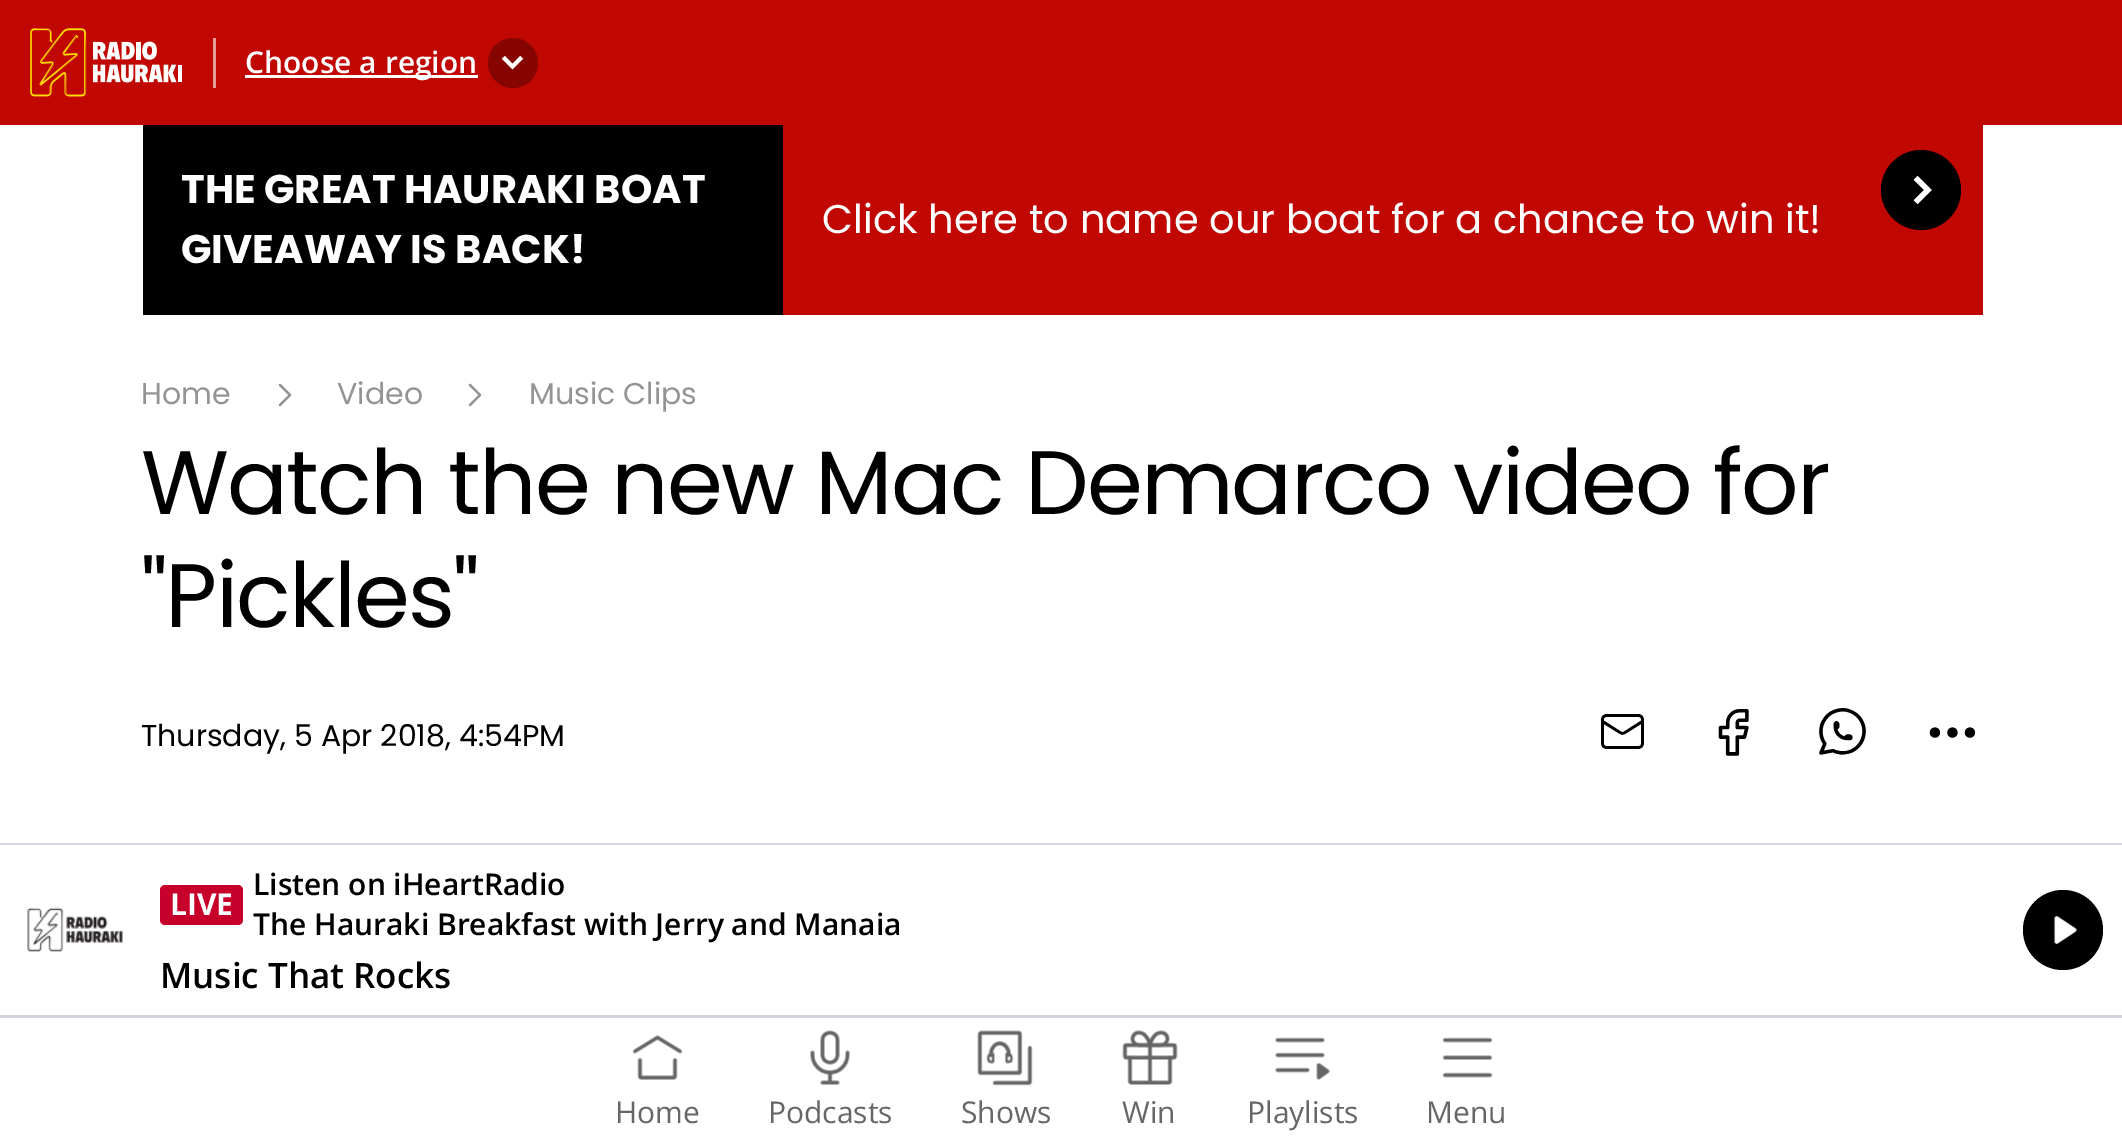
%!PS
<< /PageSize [2122 1141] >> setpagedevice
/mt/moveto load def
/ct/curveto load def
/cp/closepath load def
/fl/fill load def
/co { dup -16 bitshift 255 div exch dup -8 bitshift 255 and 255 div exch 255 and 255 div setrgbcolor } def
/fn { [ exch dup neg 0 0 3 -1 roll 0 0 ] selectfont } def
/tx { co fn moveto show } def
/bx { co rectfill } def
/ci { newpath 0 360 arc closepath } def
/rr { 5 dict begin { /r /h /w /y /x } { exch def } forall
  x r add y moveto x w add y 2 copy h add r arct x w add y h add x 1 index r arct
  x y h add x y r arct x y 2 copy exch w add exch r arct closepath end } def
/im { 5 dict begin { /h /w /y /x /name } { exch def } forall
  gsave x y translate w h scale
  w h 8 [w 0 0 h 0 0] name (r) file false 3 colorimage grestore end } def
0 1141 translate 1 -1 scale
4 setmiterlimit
0 0 2122 1141 16#FFFFFF bx
0 0 2122 125 16#C10701 bx
(media/1.raw) 30 28 152 69 im
213 38 3 50 16#E69C99 bx
245 75 233 3 16#FFFFFF bx
16#870501 co
513 63 25 ci fl
(media/2.raw) 501 55 23 15 im
783 125 1200 190 16#C10701 bx
143 125 640 190 16#000000 bx
1881 190 mt 1881 168 1899 150 1921 150 ct 1943 150 1961 168 1961 190 ct 1961 212 1943 230 1921 230 ct 1899 230 1881 212 1881 190 ct cp fl
(media/3.raw) 1913 175 19 30 im
(media/4.raw) 278 383 14 24 im
(media/4.raw) 468 383 14 24 im
(media/5.raw) 1601 714 43 35 im
(media/6.raw) 1718 709 31 47 im
(media/7.raw) 1819 708 47 47 im
(media/8.raw) 1929 727 47 11 im
0 843 2122 2 16#D1D5DB bx
(media/9.raw) 27 907 96 45 im
16#C7002B co
160 885 83 40 5 rr fl
16#000000 co
2063 930 40 ci fl
(media/10.raw) 2054 916 23 28 im
0 1015 2122 3 16#D1D5DB bx
(media/11.raw) 632 1035 51 45 im
(media/12.raw) 810 1030 40 55 im
(media/13.raw) 977 1030 56 56 im
(media/14.raw) 1122 1030 56 55 im
(media/15.raw) 1275 1037 55 43 im
(media/16.raw) 1442 1037 51 41 im
(Choose a region) 245 73 /OpenSans-SemiBold 30 16#FFFFFF tx
(THE GREAT HAURAKI BOAT) 181 203 /Poppins-Bold 40 16#FFFFFF tx
(GIVEAWAY IS BACK!) 181 263 /Poppins-Bold 40 16#FFFFFF tx
(Click here to name our boat for a chance to win it!) 822 233 /Poppins-Regular 40 16#FFFFFF tx
(Home) 141 404 /Poppins-Regular 30 16#949494 tx
(Video) 337 404 /Poppins-Regular 30 16#949494 tx
(Music Clips) 529 404 /Poppins-Regular 30 16#949494 tx
/Poppins-Regular 90 fn
16#000000 co
141 514 mt -1.8 0 (Watch the new Mac Demarco video for) ashow
141 627 mt -1.8 0 ("Pickles") ashow
(Thursday, 5 Apr 2018, 4:54PM) 141 746 /Poppins-Regular 30 16#000000 tx
(LIVE) 170 915 /OpenSans-Bold 30 16#FFFFFF tx
(Listen on iHeartRadio) 253 895 /OpenSans-SemiBold 30 16#000000 tx
(The Hauraki Breakfast with Jerry and Manaia) 253 935 /OpenSans-SemiBold 30 16#000000 tx
(Music That Rocks) 160 988 /OpenSans-SemiBold 35 16#000000 tx
(Home) 615 1123 /OpenSans-Regular 30 16#666666 tx
(Podcasts) 768 1123 /OpenSans-Regular 30 16#666666 tx
(Shows) 961 1123 /OpenSans-Regular 30 16#666666 tx
(Win) 1122 1123 /OpenSans-Regular 30 16#666666 tx
(Playlists) 1247 1123 /OpenSans-Regular 30 16#666666 tx
(Menu) 1426 1123 /OpenSans-Regular 30 16#666666 tx
showpage
